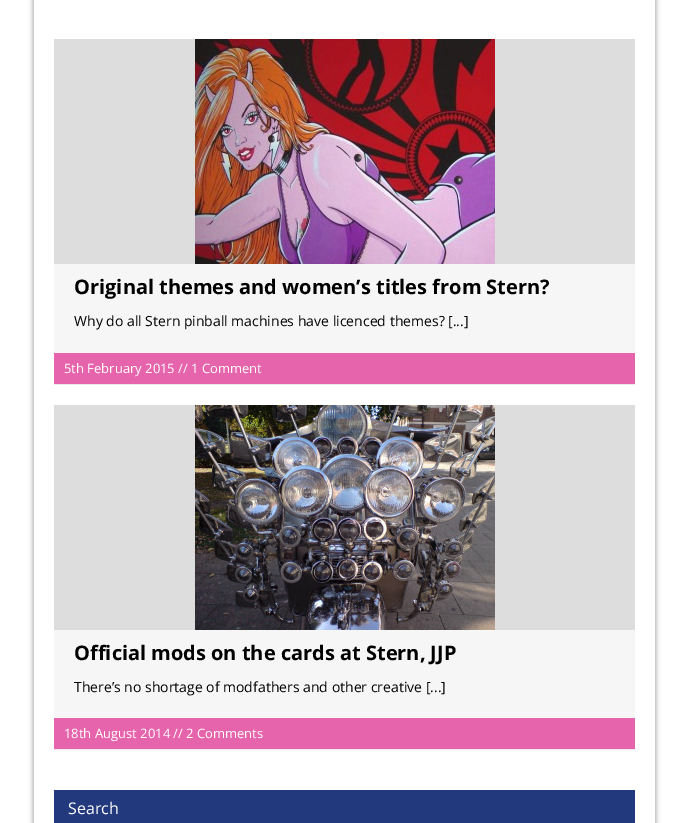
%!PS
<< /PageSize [689 823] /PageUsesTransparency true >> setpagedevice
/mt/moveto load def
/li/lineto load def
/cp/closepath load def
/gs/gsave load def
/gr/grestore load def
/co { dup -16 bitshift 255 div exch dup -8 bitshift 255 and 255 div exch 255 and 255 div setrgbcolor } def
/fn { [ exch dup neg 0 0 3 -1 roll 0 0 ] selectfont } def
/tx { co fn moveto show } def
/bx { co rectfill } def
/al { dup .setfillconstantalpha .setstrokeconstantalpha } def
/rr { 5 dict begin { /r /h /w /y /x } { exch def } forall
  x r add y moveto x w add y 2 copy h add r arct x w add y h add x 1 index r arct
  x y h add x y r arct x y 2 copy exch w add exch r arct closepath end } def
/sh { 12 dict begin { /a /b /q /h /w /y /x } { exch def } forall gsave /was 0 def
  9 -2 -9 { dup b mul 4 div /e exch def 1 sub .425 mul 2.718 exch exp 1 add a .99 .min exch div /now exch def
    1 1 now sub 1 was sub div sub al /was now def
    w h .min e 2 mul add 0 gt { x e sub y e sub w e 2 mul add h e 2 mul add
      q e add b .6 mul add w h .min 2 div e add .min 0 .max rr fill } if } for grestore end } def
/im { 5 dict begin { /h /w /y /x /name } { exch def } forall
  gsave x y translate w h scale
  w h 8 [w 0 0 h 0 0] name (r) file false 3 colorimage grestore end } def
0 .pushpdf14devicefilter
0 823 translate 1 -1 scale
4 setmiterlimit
0 0 689 823 16#FFFFFF bx
gs
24 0 mt 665 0 li 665 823 li 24 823 li cp 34 -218 mt 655 -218 li 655 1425 li 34 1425 li cp eoclip newpath
16#A8A8A8 co
33 -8 623 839 0 2.5 1 sh
gr
54 264 581 89 16#F6F6F6 bx
54 384 581 1 16#EBEBEB bx
54 39 581 225 16#DDDDDD bx
(media/1.raw) 195 39 300 225 im
54 353 581 31 16#E564AB bx
54 630 581 88 16#F6F6F6 bx
54 749 581 1 16#EBEBEB bx
54 405 581 225 16#DDDDDD bx
(media/2.raw) 195 405 300 225 im
54 718 581 31 16#E564AB bx
54 790 581 33 16#22397E bx
(Original themes and women’s titles from Stern?) 74 294 /OpenSans-Bold 20 16#000000 tx
(Why do all Stern pinball machines have licenced themes? [...]) 74 326 /OpenSans-Regular 14 16#000000 tx
(5th February 2015 // 1 Comment) 64 373 /OpenSans-Regular 13 16#FFFFFF tx
(Official mods on the cards at Stern, JJP) 74 660 /OpenSans-Bold 20 16#000000 tx
(There’s no shortage of modfathers and other creative [...]) 74 692 /OpenSans-Regular 14 16#000000 tx
(18th August 2014 // 2 Comments) 64 738 /OpenSans-Regular 13 16#FFFFFF tx
(Search) 68 814 /OpenSans-Regular 16 16#FFFFFF tx
.poppdf14devicefilter showpage
